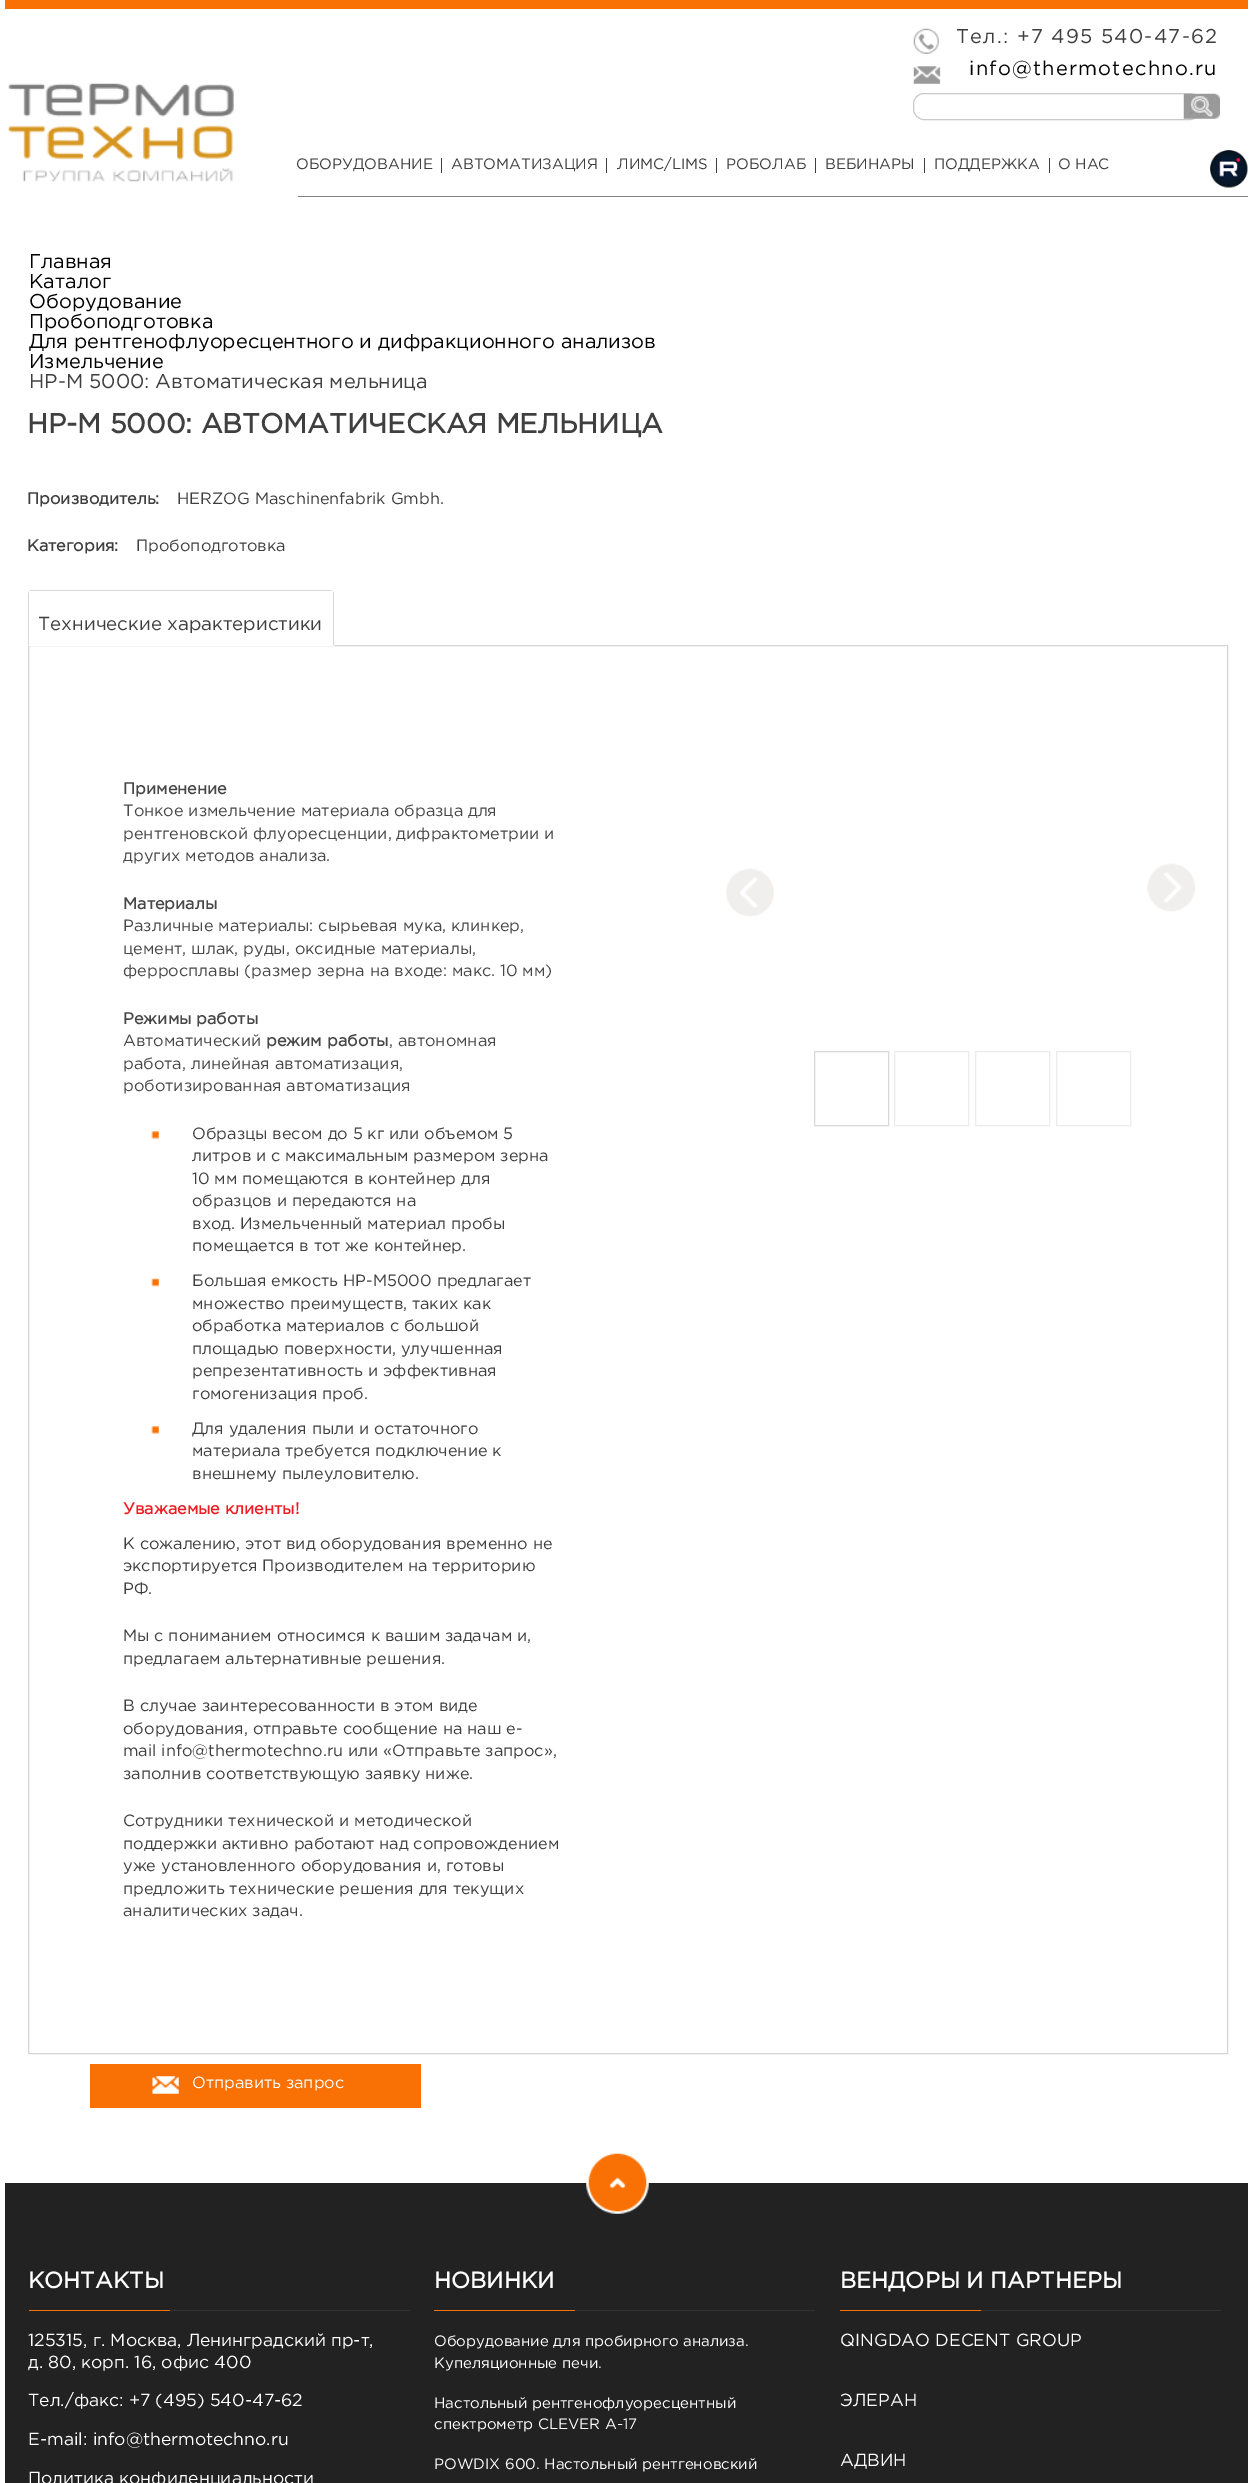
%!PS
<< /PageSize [1251 2483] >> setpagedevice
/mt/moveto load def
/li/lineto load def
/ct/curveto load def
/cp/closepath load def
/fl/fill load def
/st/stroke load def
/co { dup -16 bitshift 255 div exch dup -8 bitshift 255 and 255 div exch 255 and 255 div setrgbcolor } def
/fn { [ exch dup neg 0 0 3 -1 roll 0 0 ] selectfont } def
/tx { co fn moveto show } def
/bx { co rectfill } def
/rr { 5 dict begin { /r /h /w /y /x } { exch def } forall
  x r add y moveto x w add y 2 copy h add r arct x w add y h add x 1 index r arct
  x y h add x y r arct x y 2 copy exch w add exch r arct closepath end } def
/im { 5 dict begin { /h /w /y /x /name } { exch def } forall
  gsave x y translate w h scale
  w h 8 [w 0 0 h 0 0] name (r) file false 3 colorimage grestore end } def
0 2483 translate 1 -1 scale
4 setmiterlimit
0 0 1251 2483 16#FFFFFF bx
5 0 1243 9 16#F97105 bx
(media/1.raw) 913 28 26 26 im
(media/2.raw) 913 66 28 18 im
16#CACACA co
913.5 93.5 287 26 10.5 rr st
(media/3.raw) 1183 93 37 26 im
(media/4.raw) 8 83 226 99 im
441 158 1 15 16#3F3F3F bx
606 158 1 15 16#3F3F3F bx
716 158 1 15 16#3F3F3F bx
815 158 1 15 16#3F3F3F bx
924 158 1 15 16#3F3F3F bx
1049 158 1 15 16#3F3F3F bx
(media/5.raw) 1210 150 38 38 im
298 196 950 1 16#808080 bx
16#D6D6D6 co
28.5 645.5 1199 1408 rectstroke
16#FFFFFF co
32 590 mt 330 590 li 332 590 334 592 334 594 ct 334 646 li 28 646 li 28 594 li 28 592 30 590 32 590 ct cp fl
16#D6D6D6 co
31 590 mt 29 591 li 29 592 li 31 591 li 330 591 li 332 592 li 333 591 li 330 590 li cp fl
334 646 mt 332 644 li 332 592 li 333 591 li 334 593 li cp fl
16#FFFFFF co
334 646 mt 28 646 li 29 645 li 332 645 li 332 644 li cp fl
16#D6D6D6 co
29 591 mt 28 594 li 28 646 li 29 645 li 29 594 li 29 592 li cp fl
29 591 304 54 16#FFFFFF bx
(media/6.raw) 151 1131 8 8 im
(media/7.raw) 151 1278 8 9 im
(media/6.raw) 151 1426 8 8 im
(media/8.raw) 726 868 48 49 im
(media/9.raw) 1147 863 48 49 im
16#D9D9D9 co
814.5 1051.5 74 74 rectstroke
16#ECECEC co
894.5 1051.5 74 74 rectstroke
975.5 1051.5 74 74 rectstroke
1056.5 1051.5 74 74 rectstroke
90 2064 331 44 16#F97105 bx
(media/10.raw) 152 2076 27 18 im
5 2183 1243 300 16#222222 bx
(media/11.raw) 586 2153 63 61 im
170 2310 240 1 16#333333 bx
29 2310 141 1 16#F97105 bx
575 2310 240 1 16#333333 bx
434 2310 141 1 16#F97105 bx
981 2310 240 1 16#333333 bx
840 2310 141 1 16#F97105 bx
/Gotham-Regular 20 fn
16#3F3F3F co
956 43 mt 1.25 0 (Тел.: +7 495 540-47-62) ashow
16#000000 co
969 75 mt 1.25 0 (info@thermotechno.ru) ashow
(ОБОРУДОВАНИЕ) 296 169 /Gotham-Regular 15 16#3F3F3F tx
(АВТОМАТИЗАЦИЯ) 451 169 /Gotham-Regular 15 16#3F3F3F tx
(ЛИМС/LIMS) 617 169 /Gotham-Regular 15 16#3F3F3F tx
(РОБОЛАБ) 726 169 /Gotham-Regular 15 16#3F3F3F tx
(ВЕБИНАРЫ) 825 169 /Gotham-Regular 15 16#3F3F3F tx
(ПОДДЕРЖКА) 934 169 /Gotham-Regular 15 16#3F3F3F tx
(О НАС) 1058 169 /Gotham-Regular 15 16#3F3F3F tx
(Главная) 29 268 /Gotham-Regular 20 16#000000 tx
(Каталог) 29 288 /Gotham-Regular 20 16#000000 tx
(Оборудование) 29 308 /Gotham-Regular 20 16#000000 tx
(Пробоподготовка) 29 328 /Gotham-Regular 20 16#000000 tx
(Для рентгенофлуоресцентного и дифракционного анализов) 29 348 /Gotham-Regular 20 16#000000 tx
(Измельчение) 29 368 /Gotham-Regular 20 16#000000 tx
(HP-M 5000: Автоматическая мельница) 29 388 /Gotham-Regular 20 16#3F3F3F tx
(HP-M 5000: АВТОМАТИЧЕСКАЯ МЕЛЬНИЦА) 27 433 /Gotham-Bold 27.5 16#3F3F3F tx
(Производитель:) 27 504 /Gotham-Bold 16.25 16#3F3F3F tx
(HERZOG Maschinenfabrik Gmbh.) 177 504 /Gotham-Regular 16.25 16#3F3F3F tx
(Категория:) 27 551 /Gotham-Bold 16.25 16#3F3F3F tx
(Пробоподготовка) 136 551 /Gotham-Regular 16.25 16#3F3F3F tx
(Технические характеристики) 38 630 /Gotham-Regular 18.75 16#3F3F3F tx
(Применение) 123 794 /Gotham-Bold 16.25 16#474747 tx
(Тонкое измельчение материала образца для) 123 816 /Gotham-Regular 16.25 16#474747 tx
(рентгеновской флуоресценции, дифрактометрии и) 123 839 /Gotham-Regular 16.25 16#474747 tx
(других методов анализа.) 123 861 /Gotham-Regular 16.25 16#474747 tx
(Материалы) 123 909 /Gotham-Bold 16.25 16#474747 tx
(Различные материалы: сырьевая мука, клинкер,) 123 931 /Gotham-Regular 16.25 16#474747 tx
(цемент, шлак, руды, оксидные материалы,) 123 954 /Gotham-Regular 16.25 16#474747 tx
(ферросплавы \(размер зерна на входе: макс. 10 мм\)) 123 976 /Gotham-Regular 16.25 16#474747 tx
(Режимы работы) 123 1024 /Gotham-Bold 16.25 16#474747 tx
(Автоматический) 123 1046 /Gotham-Regular 16.25 16#474747 tx
(режим работы) 266 1046 /Gotham-Bold 16.25 16#474747 tx
(, автономная) 389 1046 /Gotham-Regular 16.25 16#474747 tx
(работа, линейная автоматизация,) 123 1069 /Gotham-Regular 16.25 16#474747 tx
(роботизированная автоматизация) 123 1091 /Gotham-Regular 16.25 16#474747 tx
(Образцы весом до 5 кг или объемом 5) 192 1139 /Gotham-Regular 16.25 16#3F3F3F tx
(литров и с максимальным размером зерна) 192 1161 /Gotham-Regular 16.25 16#3F3F3F tx
(10 мм помещаются в контейнер для) 192 1184 /Gotham-Regular 16.25 16#3F3F3F tx
(образцов и передаются на) 192 1206 /Gotham-Regular 16.25 16#3F3F3F tx
(вход. Измельченный материал пробы) 192 1229 /Gotham-Regular 16.25 16#3F3F3F tx
(помещается в тот же контейнер.) 192 1251 /Gotham-Regular 16.25 16#3F3F3F tx
(Большая емкость HP-M5000 предлагает) 192 1286 /Gotham-Regular 16.25 16#3F3F3F tx
(множество преимуществ, таких как) 192 1309 /Gotham-Regular 16.25 16#3F3F3F tx
(обработка материалов с большой) 192 1331 /Gotham-Regular 16.25 16#3F3F3F tx
(площадью поверхности, улучшенная) 192 1354 /Gotham-Regular 16.25 16#3F3F3F tx
(репрезентативность и эффективная) 192 1376 /Gotham-Regular 16.25 16#3F3F3F tx
(гомогенизация проб.) 192 1399 /Gotham-Regular 16.25 16#3F3F3F tx
(Для удаления пыли и остаточного) 192 1434 /Gotham-Regular 16.25 16#3F3F3F tx
(материала требуется подключение к) 192 1456 /Gotham-Regular 16.25 16#3F3F3F tx
(внешнему пылеуловителю.) 192 1479 /Gotham-Regular 16.25 16#3F3F3F tx
(Уважаемые клиенты!) 123 1514 /Gotham-Bold 16.25 16#EE1D24 tx
(К сожалению, этот вид оборудования временно не) 123 1549 /Gotham-Regular 16.25 16#3F3F3F tx
(экспортируется Производителем на территорию) 123 1571 /Gotham-Regular 16.25 16#3F3F3F tx
(РФ.) 123 1594 /Gotham-Regular 16.25 16#3F3F3F tx
(Мы с пониманием относимся к вашим задачам и,) 123 1641 /Gotham-Regular 16.25 16#3F3F3F tx
(предлагаем альтернативные решения.) 123 1664 /Gotham-Regular 16.25 16#3F3F3F tx
(В случае заинтересованности в этом виде) 123 1711 /Gotham-Regular 16.25 16#3F3F3F tx
(оборудования, отправьте сообщение на наш e-) 123 1734 /Gotham-Regular 16.25 16#3F3F3F tx
(mail info@thermotechno.ru или «Отправьте запрос»,) 123 1756 /Gotham-Regular 16.25 16#3F3F3F tx
(заполнив соответствующую заявку ниже.) 123 1779 /Gotham-Regular 16.25 16#3F3F3F tx
(Сотрудники технической и методической) 123 1826 /Gotham-Regular 16.25 16#3F3F3F tx
(поддержки активно работают над сопровождением) 123 1849 /Gotham-Regular 16.25 16#3F3F3F tx
(уже установленного оборудования и, готовы) 123 1871 /Gotham-Regular 16.25 16#3F3F3F tx
(предложить технические решения для текущих) 123 1894 /Gotham-Regular 16.25 16#3F3F3F tx
(аналитических задач.) 123 1916 /Gotham-Regular 16.25 16#3F3F3F tx
(Отправить запрос) 192 2088 /Gotham-Regular 16.25 16#FFFFFF tx
(КОНТАКТЫ) 28 2288 /Gotham-Bold 22.5 16#FFFFFF tx
(125315, г. Москва, Ленинградский пр-т,) 28 2346 /Gotham-Regular 17.5 16#FFFFFF tx
(д. 80, корп. 16, офис 400) 28 2368 /Gotham-Regular 17.5 16#FFFFFF tx
(Тел./факс: +7 \(495\) 540-47-62) 28 2406 /Gotham-Regular 17.5 16#FFFFFF tx
(E-mail: info@thermotechno.ru) 28 2445 /Gotham-Regular 17.5 16#FFFFFF tx
(Политика конфиденциальности) 28 2484 /Gotham-Regular 17.5 16#FFFFFF tx
(НОВИНКИ) 434 2288 /Gotham-Bold 22.5 16#FFFFFF tx
(Оборудование для пробирного анализа.) 434 2346 /Gotham-Regular 15 16#FFFFFF tx
(Купеляционные печи.) 434 2368 /Gotham-Regular 15 16#FFFFFF tx
(Настольный рентгенофлуоресцентный) 434 2408 /Gotham-Regular 15 16#FFFFFF tx
(спектрометр CLEVER A-17) 434 2429 /Gotham-Regular 15 16#FFFFFF tx
(POWDIX 600. Настольный рентгеновский) 434 2469 /Gotham-Regular 15 16#FFFFFF tx
(ВЕНДОРЫ И ПАРТНЕРЫ) 840 2288 /Gotham-Bold 22.5 16#FFFFFF tx
(QINGDAO DECENT GROUP) 840 2346 /Gotham-Regular 17.5 16#FFFFFF tx
(ЭЛЕРАН) 840 2406 /Gotham-Regular 17.5 16#FFFFFF tx
(АДВИН) 840 2466 /Gotham-Regular 17.5 16#FFFFFF tx
showpage
